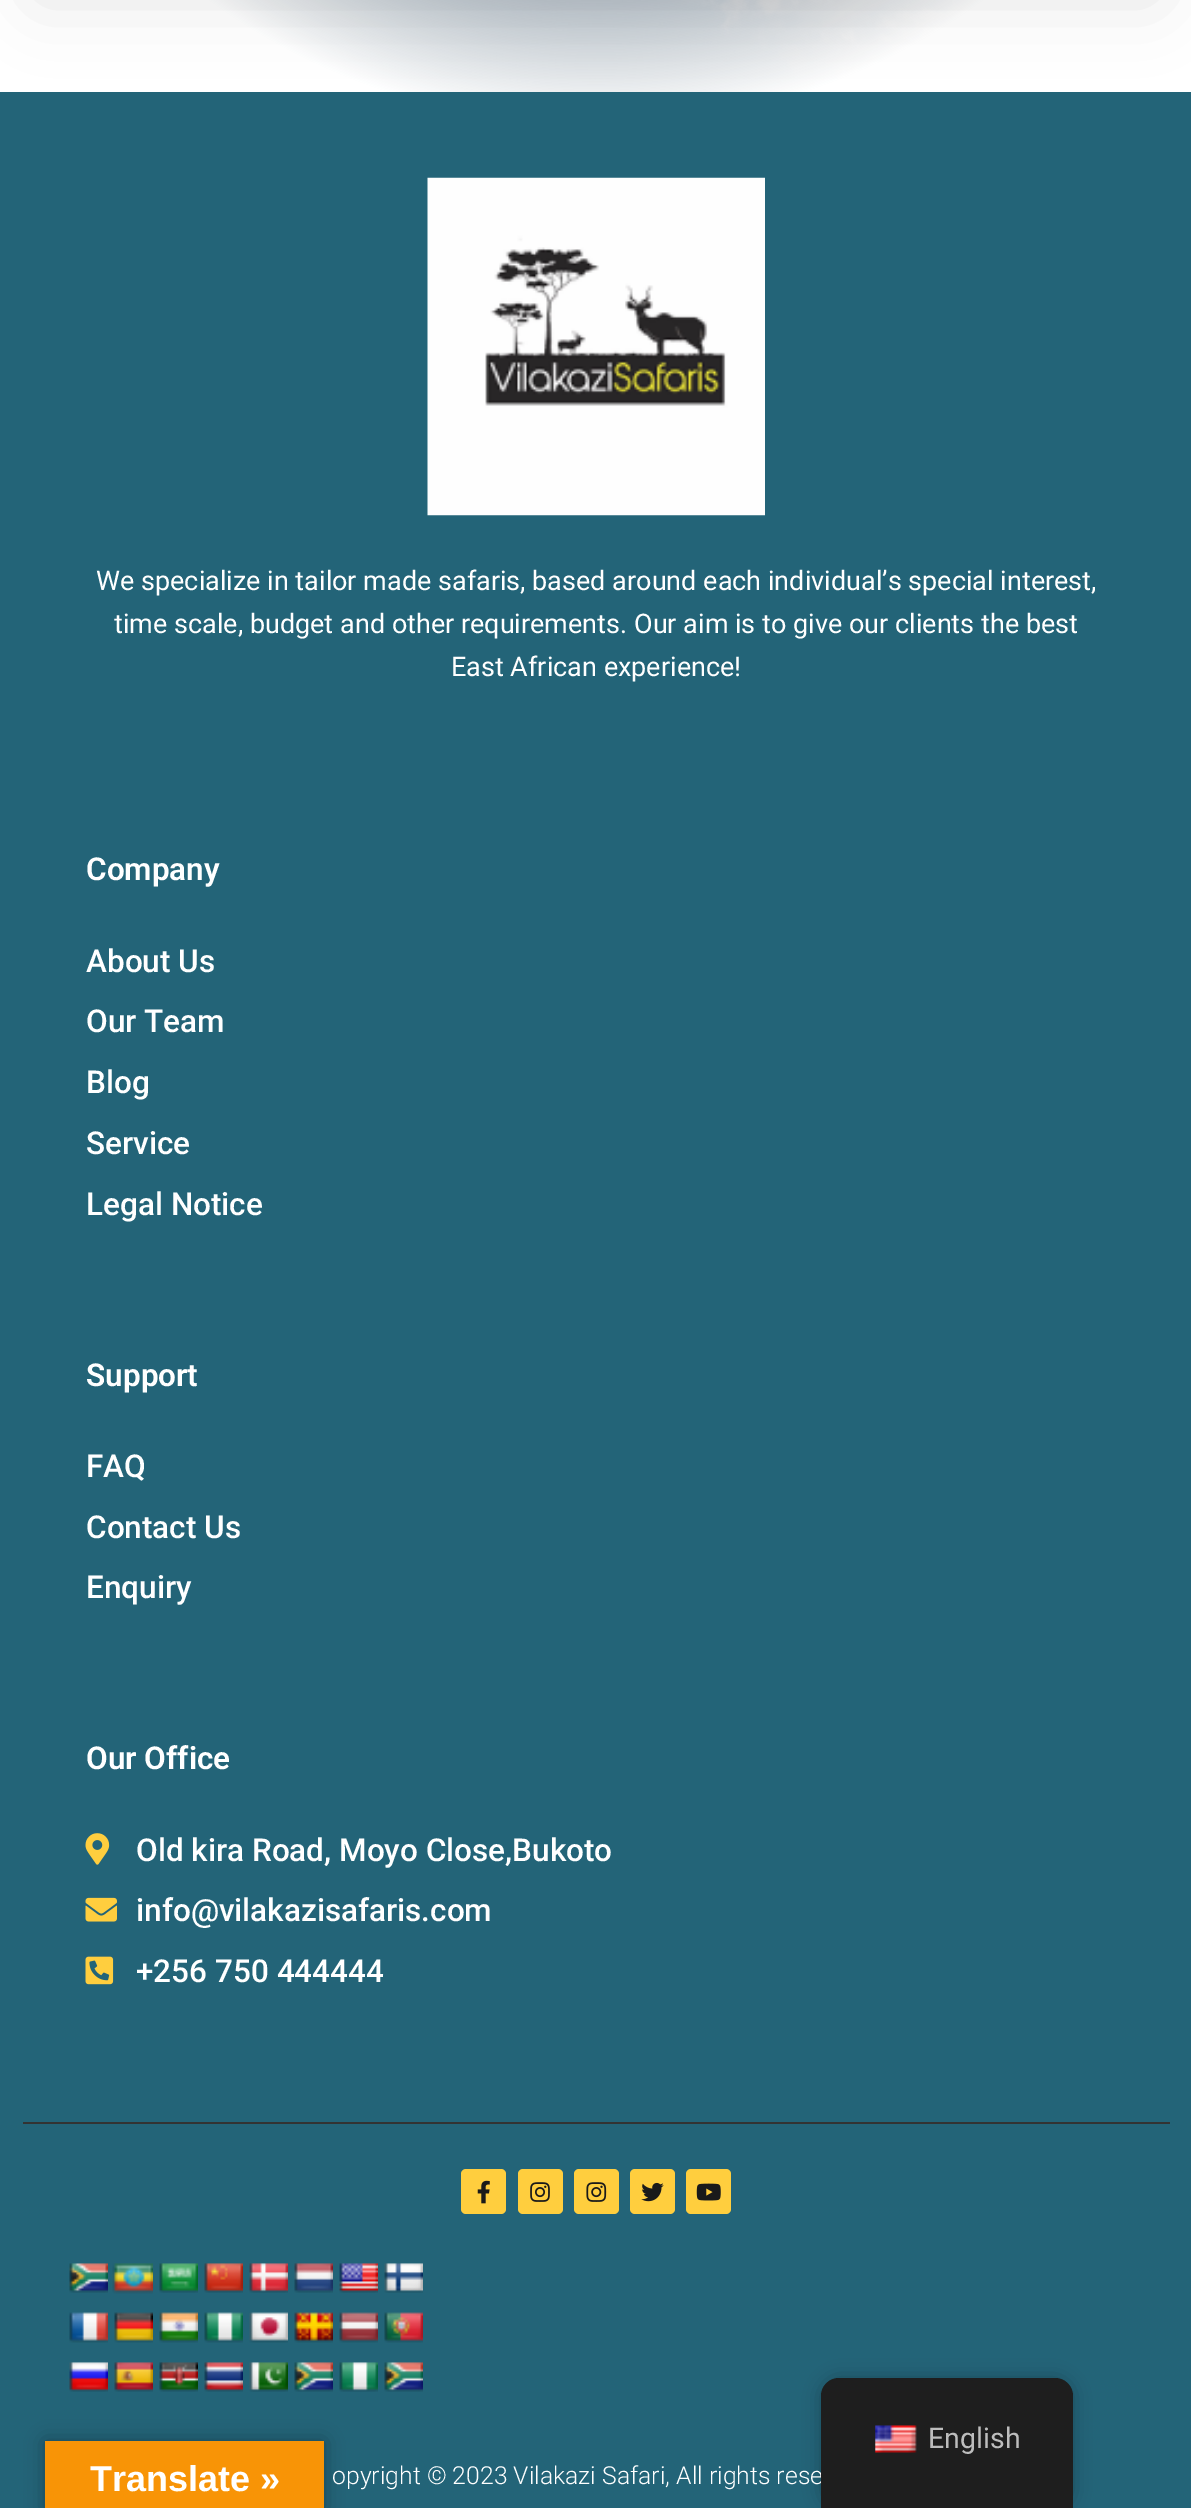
%!PS
<< /PageSize [1191 2508] /PageUsesTransparency true >> setpagedevice
/mt/moveto load def
/li/lineto load def
/ct/curveto load def
/cp/closepath load def
/fl/fill load def
/co { dup -16 bitshift 255 div exch dup -8 bitshift 255 and 255 div exch 255 and 255 div setrgbcolor } def
/fn { [ exch dup neg 0 0 3 -1 roll 0 0 ] selectfont } def
/tx { co fn moveto show } def
/bx { co rectfill } def
/al { dup .setfillconstantalpha .setstrokeconstantalpha } def
/rr { 5 dict begin { /r /h /w /y /x } { exch def } forall
  x r add y moveto x w add y 2 copy h add r arct x w add y h add x 1 index r arct
  x y h add x y r arct x y 2 copy exch w add exch r arct closepath end } def
/sh { 12 dict begin { /a /b /q /h /w /y /x } { exch def } forall gsave /was 0 def
  9 -2 -9 { dup b mul 4 div /e exch def 1 sub .425 mul 2.718 exch exp 1 add a .99 .min exch div /now exch def
    1 1 now sub 1 was sub div sub al /was now def
    w h .min e 2 mul add 0 gt { x e sub y e sub w e 2 mul add h e 2 mul add
      q e add b .6 mul add w h .min 2 div e add .min 0 .max rr fill } if } for grestore end } def
/im { 5 dict begin { /h /w /y /x /name } { exch def } forall
  gsave x y translate w h scale
  w h 8 [w 0 0 h 0 0] name (r) file false 3 colorimage grestore end } def
0 .pushpdf14devicefilter
0 2508 translate 1 -1 scale
4 setmiterlimit
0 0 1191 2508 16#FFFFFF bx
(media/1.raw) 0 0 1191 92 im
16#000000 co
32 -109 1129 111 7 34 .1 sh
0 92 1191 2416 16#236478 bx
23 2122 1147 2 16#333333 bx
(media/2.raw) 427 177 338 339 im
(media/3.raw) 85 1833 25 32 im
(media/4.raw) 85 1897 32 25 im
(media/5.raw) 85 1956 29 29 im
16#FFCE3E co
461 2169 45 45 5 rr fl
(media/6.raw) 477 2180 13 24 im
518 2169 45 45 5 rr fl
(media/7.raw) 530 2182 20 20 im
574 2169 45 45 5 rr fl
(media/8.raw) 586 2182 21 20 im
630 2169 45 45 5 rr fl
(media/9.raw) 641 2182 23 20 im
686 2169 45 45 5 rr fl
(media/10.raw) 696 2183 25 18 im
(media/11.raw) 69 2263 39 30 im
(media/12.raw) 112 2263 41 31 im
(media/13.raw) 159 2263 39 30 im
(media/14.raw) 204 2263 39 30 im
(media/15.raw) 249 2263 39 30 im
(media/16.raw) 294 2263 39 30 im
(media/17.raw) 339 2263 39 30 im
(media/18.raw) 384 2263 39 30 im
(media/19.raw) 69 2312 39 31 im
(media/20.raw) 114 2312 39 31 im
(media/21.raw) 159 2312 39 31 im
(media/22.raw) 204 2312 39 31 im
(media/23.raw) 249 2312 39 31 im
(media/24.raw) 294 2312 39 31 im
(media/25.raw) 339 2312 39 31 im
(media/26.raw) 384 2312 39 31 im
(media/27.raw) 69 2362 39 30 im
(media/28.raw) 114 2362 39 30 im
(media/29.raw) 159 2362 39 30 im
(media/30.raw) 204 2362 39 30 im
(media/31.raw) 249 2362 39 30 im
(media/11.raw) 294 2362 39 30 im
(media/32.raw) 339 2362 39 30 im
(media/11.raw) 384 2362 39 30 im
16#000000 co
821 2378 252 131 18 9 .25 sh
45 2441 279 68 0 10 .3 sh
45 2441 279 67 16#F89406 bx
(We specialize in tailor made safaris, based around each individual’s special interest,) 96 590 /Roboto-Regular 27 16#FFFFFF tx
(time scale, budget and other requirements. Our aim is to give our clients the best) 114 633 /Roboto-Regular 27 16#FFFFFF tx
(East African experience!) 451 676 /Roboto-Regular 27 16#FFFFFF tx
(Company) 86 880 /Roboto-SemiBold 31.5 16#FFFFFF tx
(About Us) 86 972 /Roboto-Medium 31.5 16#FFFFFF tx
(Our Team) 86 1032 /Roboto-Medium 31.5 16#FFFFFF tx
(Blog) 86 1093 /Roboto-Medium 31.5 16#FFFFFF tx
(Service) 86 1154 /Roboto-Medium 31.5 16#FFFFFF tx
(Legal Notice) 86 1215 /Roboto-Medium 31.5 16#FFFFFF tx
(Support) 86 1386 /Roboto-SemiBold 31.5 16#FFFFFF tx
(FAQ) 86 1477 /Roboto-Medium 31.5 16#FFFFFF tx
(Contact Us) 86 1538 /Roboto-Medium 31.5 16#FFFFFF tx
(Enquiry) 86 1598 /Roboto-Medium 31.5 16#FFFFFF tx
(Our Office) 86 1769 /Roboto-SemiBold 31.5 16#FFFFFF tx
(Old kira Road, Moyo Close,Bukoto) 136 1861 /Roboto-Medium 31.5 16#FFFFFF tx
(info@vilakazisafaris.com) 136 1921 /Roboto-Medium 31.5 16#FFFFFF tx
(+256 750 444444) 136 1982 /Roboto-Medium 31.5 16#FFFFFF tx
(opyright © 2023 Vilakazi Safari, All rights rese) 332 2484 /Roboto-Light 24.75 16#FFFFFF tx
16#1E1E1E co
839 2378 mt 1055 2378 li 1065 2378 1073 2386 1073 2396 ct 1073 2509 li 821 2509 li 821 2396 li 821 2386 829 2378 839 2378 ct cp fl
(media/33.raw) 875 2425 42 28 im
(English) 928 2448 /Roboto-Regular 28.5 16#BDBDBD tx
(Translate ») 90 2491 /LiberationSans-Bold 36 16#FFFFFF tx
.poppdf14devicefilter showpage
